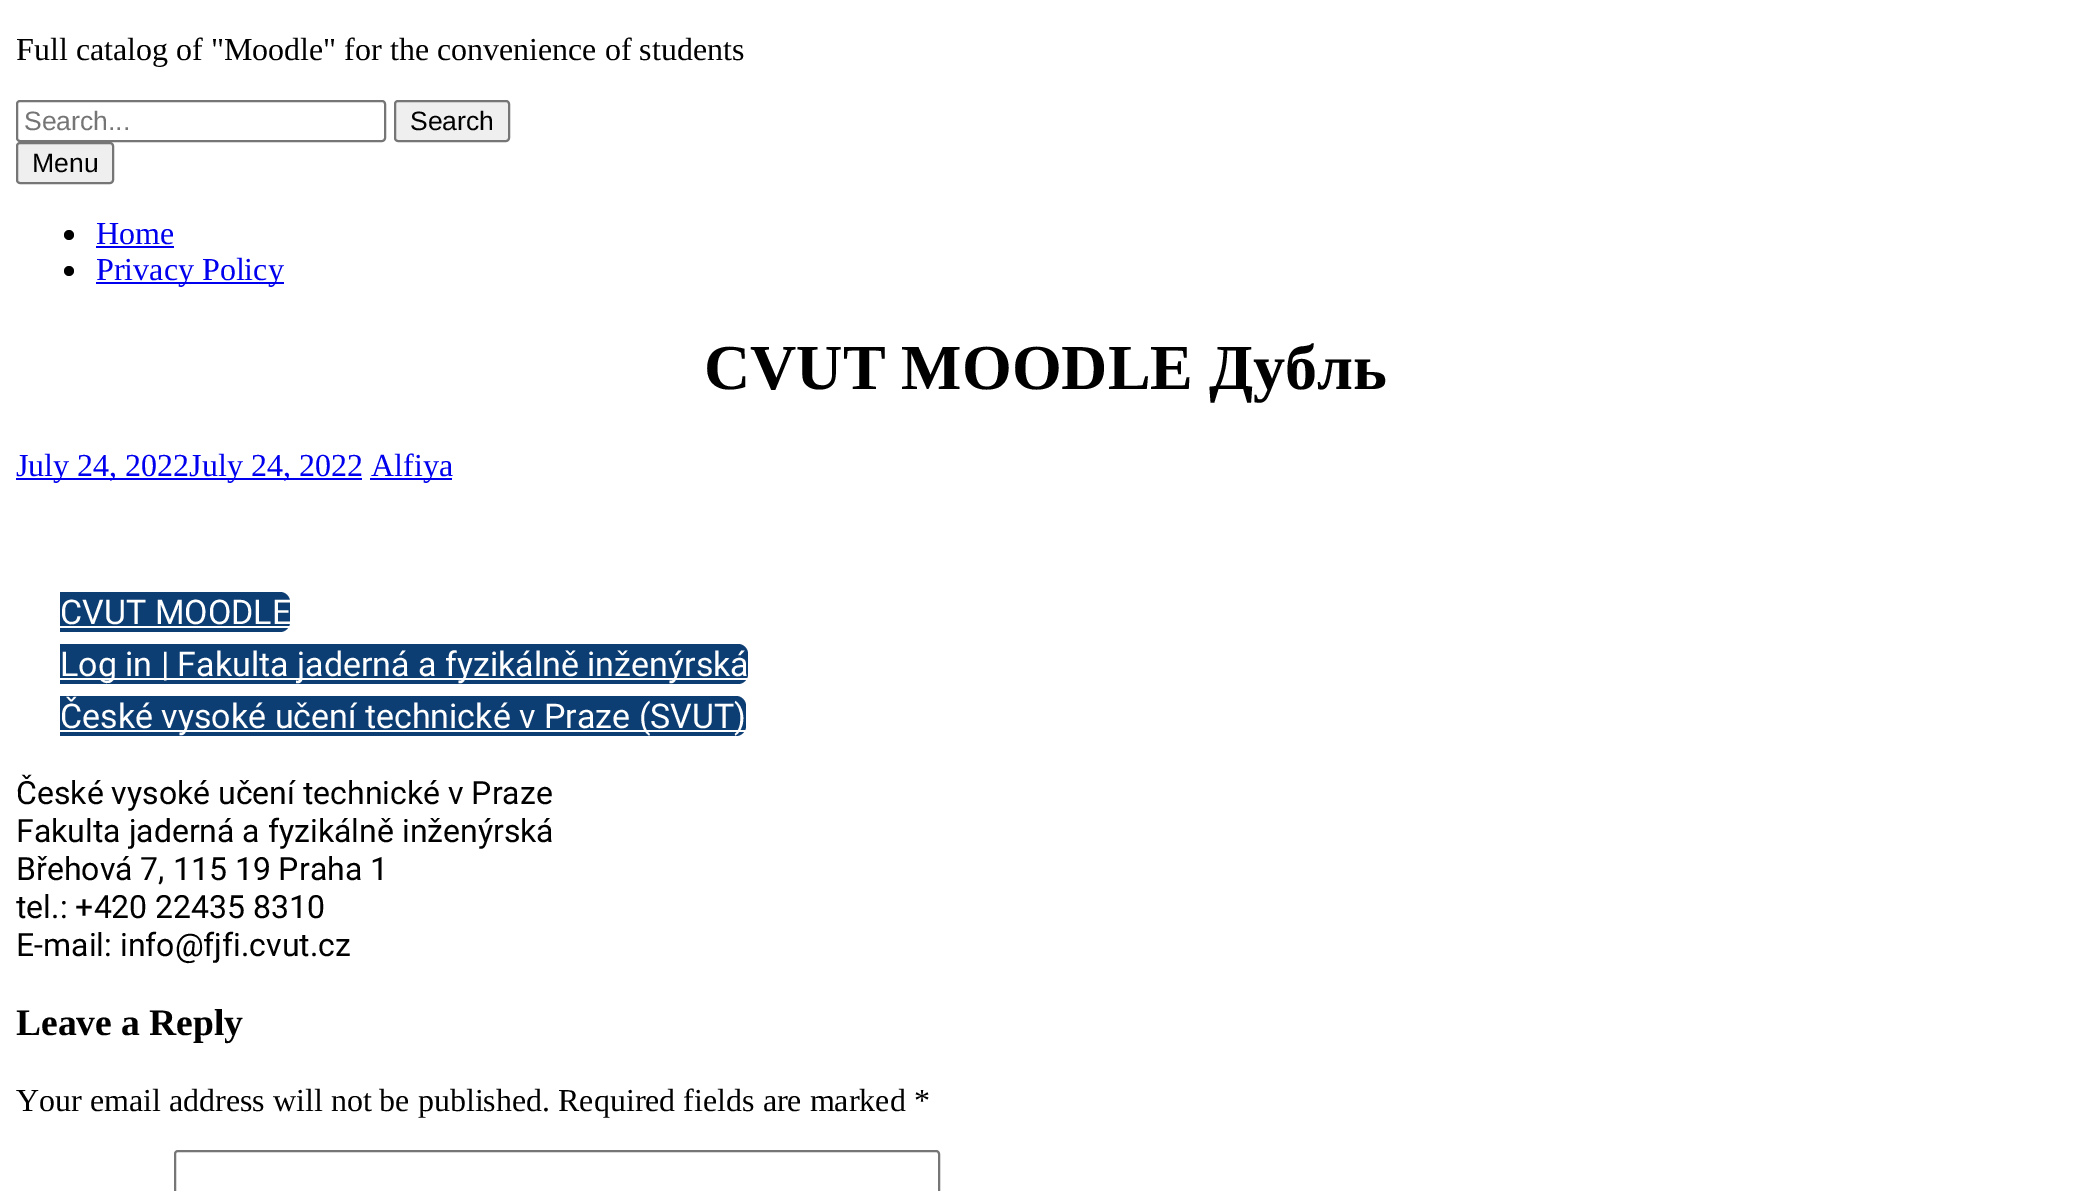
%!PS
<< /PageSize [2090 1191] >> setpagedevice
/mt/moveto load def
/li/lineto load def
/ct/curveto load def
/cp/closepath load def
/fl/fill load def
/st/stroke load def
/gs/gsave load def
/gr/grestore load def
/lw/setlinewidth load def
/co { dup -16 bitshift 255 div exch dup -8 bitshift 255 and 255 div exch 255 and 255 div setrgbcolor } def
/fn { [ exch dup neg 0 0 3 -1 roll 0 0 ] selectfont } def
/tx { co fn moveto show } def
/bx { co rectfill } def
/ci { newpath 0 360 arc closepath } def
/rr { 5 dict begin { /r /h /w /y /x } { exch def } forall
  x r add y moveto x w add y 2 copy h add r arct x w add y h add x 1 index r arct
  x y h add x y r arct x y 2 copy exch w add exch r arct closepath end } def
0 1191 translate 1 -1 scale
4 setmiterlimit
0 0 2090 1191 16#FFFFFF bx
16#767676 co
2 lw
17 101 368 40 3 rr st
16#EFEFEF co
395 101 114 40 3 rr gs fl gr
16#767676 co
st
16#EFEFEF co
17 143 96 40 3 rr gs fl gr
16#767676 co
st
16#000000 co
69 235 5 ci fl
96 246 78 2 16#0000EE bx
16#000000 co
69 271 5 ci fl
96 282 188 2 16#0000EE bx
16 478 346 2 16#0000EE bx
370 478 82 2 16#0000EE bx
16#0D3E73 co
60 592 mt 280 592 li 285.5 592 290 596.5 290 602 ct 290 622 li 290 627.5 285.5 632 280 632 ct 60 632 li cp fl
60 626 230 2 16#FFFFFF bx
16#0D3E73 co
60 644 mt 738 644 li 743.5 644 748 648.5 748 654 ct 748 674 li 748 679.5 743.5 684 738 684 ct 60 684 li cp fl
60 678 688 2 16#FFFFFF bx
16#0D3E73 co
60 696 mt 736 696 li 741.5 696 746 700.5 746 706 ct 746 726 li 746 731.5 741.5 736 736 736 ct 60 736 li cp fl
60 730 686 2 16#FFFFFF bx
16#767676 co
175 1151 764 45 3 rr st
(Full catalog of "Moodle" for the convenience of students) 16 60 /LiberationSerif-Regular 32 16#000000 tx
(Search...) 24 130 /LiberationSans-Regular 26.5 16#757575 tx
(Search) 410 130 /LiberationSans-Regular 26.5 16#000000 tx
(Menu) 32 172 /LiberationSans-Regular 26.5 16#000000 tx
(Home) 96 244 /LiberationSerif-Regular 32 16#0000EE tx
(Privacy Policy) 96 280 /LiberationSerif-Regular 32 16#0000EE tx
(CVUT MOODLE Дубль) 704 389 /LiberationSerif-Bold 64 16#000000 tx
(July 24, 2022July 24, 2022) 16 476 /LiberationSerif-Regular 32 16#0000EE tx
(Alfiya) 371 476 /LiberationSerif-Regular 32 16#0000EE tx
(CVUT MOODLE) 60 624 /Roboto-Regular 34 16#FFFFFF tx
(Log in | Fakulta jaderná a fyzikálně inženýrská) 60 676 /Roboto-Regular 34 16#FFFFFF tx
(České vysoké učení technické v Praze \(SVUT\)) 60 728 /Roboto-Regular 34 16#FFFFFF tx
(České vysoké učení technické v Praze) 16 804 /Roboto-Regular 32 16#000000 tx
(Fakulta jaderná a fyzikálně inženýrská) 16 842 /Roboto-Regular 32 16#000000 tx
(Břehová 7, 115 19 Praha 1) 16 880 /Roboto-Regular 32 16#000000 tx
(tel.: +420 22435 8310) 16 918 /Roboto-Regular 32 16#000000 tx
(E-mail: info@fjfi.cvut.cz) 16 956 /Roboto-Regular 32 16#000000 tx
(Leave a Reply) 16 1035 /LiberationSerif-Bold 37.5 16#000000 tx
(Your email address will not be published. Required fields are marked *) 16 1111 /LiberationSerif-Regular 32 16#000000 tx
showpage
